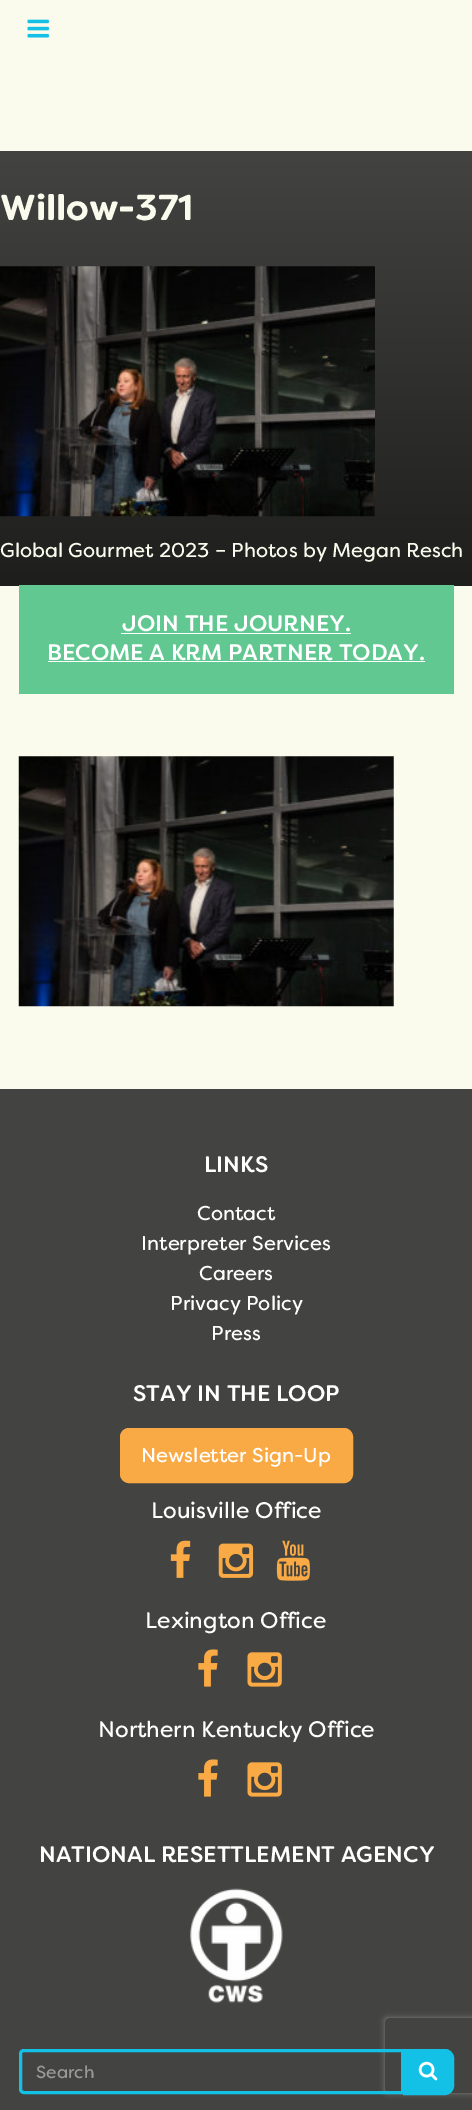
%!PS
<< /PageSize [472 2110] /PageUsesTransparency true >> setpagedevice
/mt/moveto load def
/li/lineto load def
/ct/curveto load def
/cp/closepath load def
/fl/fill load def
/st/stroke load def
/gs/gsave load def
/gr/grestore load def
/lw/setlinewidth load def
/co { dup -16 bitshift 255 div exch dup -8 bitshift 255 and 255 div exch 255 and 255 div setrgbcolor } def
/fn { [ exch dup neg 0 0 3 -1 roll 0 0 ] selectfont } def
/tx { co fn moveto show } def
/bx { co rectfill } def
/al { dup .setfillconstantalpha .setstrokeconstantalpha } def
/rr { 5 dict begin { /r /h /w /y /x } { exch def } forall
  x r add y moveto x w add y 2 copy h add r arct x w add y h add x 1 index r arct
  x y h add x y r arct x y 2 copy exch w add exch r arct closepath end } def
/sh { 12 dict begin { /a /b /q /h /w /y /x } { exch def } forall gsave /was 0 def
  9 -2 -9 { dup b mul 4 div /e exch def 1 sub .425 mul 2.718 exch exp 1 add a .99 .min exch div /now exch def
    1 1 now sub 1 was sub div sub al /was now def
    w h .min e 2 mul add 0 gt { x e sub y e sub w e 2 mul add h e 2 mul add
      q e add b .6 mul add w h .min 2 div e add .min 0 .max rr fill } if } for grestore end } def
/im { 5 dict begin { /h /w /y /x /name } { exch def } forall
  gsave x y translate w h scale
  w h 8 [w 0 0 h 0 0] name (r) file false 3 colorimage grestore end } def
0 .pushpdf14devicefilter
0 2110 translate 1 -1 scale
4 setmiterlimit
0 0 472 2110 16#FAFBED bx
(media/1.raw) 27 19 22 19 im
gs 0 151 mt 472 151 li 472 586 li 0 586 li cp clip newpath
<< /ShadingType 2 /ColorSpace /DeviceRGB /Coords [236 151 236 586] /Extend [true true] /Function << /FunctionType 2 /Domain [0 1] /C0 [.263 .267 .255] /C1 [.118 .122 .114] /N 1 >> >> shfill gr
(media/2.raw) 0 266 375 251 im
19 585 435 109 16#60C890 bx
121 633 230 1 16#FFFFFF bx
48 661 377 1 16#FFFFFF bx
(media/3.raw) 18 756 376 251 im
0 1089 472 1021 16#434441 bx
16#FAAA44 co
120.5 1428.5 232 54 8.5 rr gs fl gr
st
(media/4.raw) 170 1540 21 38 im
(media/5.raw) 218 1543 36 35 im
(media/6.raw) 276 1540 34 41 im
(media/7.raw) 198 1649 20 38 im
(media/8.raw) 247 1652 35 35 im
(media/7.raw) 198 1759 20 38 im
(media/8.raw) 247 1762 35 35 im
(media/9.raw) 190 1888 93 115 im
gs
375 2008 mt 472 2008 li 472 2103 li 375 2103 li cp 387.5 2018 mt 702.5 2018 li 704 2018 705 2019 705 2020.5 ct 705 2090.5 li 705 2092 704 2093 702.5 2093 ct 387.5 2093 li 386 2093 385 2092 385 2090.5 ct 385 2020.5 li 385 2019 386 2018 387.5 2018 ct cp eoclip newpath
16#808080 co
385 2018 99 75 2.5 3 1 sh
gr
16#14C1E6 co
3 lw
24 2050.5 mt 402.5 2050.5 li 402.5 2092.5 li 24 2092.5 li 22 2092.5 20.5 2091 20.5 2089 ct 20.5 2054 li 20.5 2052 22 2050.5 24 2050.5 ct cp st
403.5 2049.5 mt 445 2049.5 li 449.5 2049.5 453.5 2053.5 453.5 2058 ct 453.5 2086 li 453.5 2090.5 449.5 2094.5 445 2094.5 ct 403.5 2094.5 li cp gs fl gr
1 lw
st
(media/10.raw) 418 2061 20 20 im
(Willow-371) 0 220 /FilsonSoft-Bold 36 16#FAFBED tx
(Global Gourmet 2023 – Photos by Megan Resch) 0 557 /FilsonSoft-Regular 20 16#FAFBED tx
(JOIN THE JOURNEY.) 122 631 /FilsonSoft-Medium 22.5 16#FFFFFF tx
(BECOME A KRM PARTNER TODAY.) 47 660 /FilsonSoft-Medium 22.5 16#FFFFFF tx
(LINKS) 204 1172 /FilsonSoft-Medium 22.5 16#FFFFFF tx
(Contact) 197 1220 /FilsonSoft-Regular 20 16#FFFFFF tx
(Interpreter Services) 141 1250 /FilsonSoft-Regular 20 16#FFFFFF tx
(Careers) 199 1280 /FilsonSoft-Regular 20 16#FFFFFF tx
(Privacy Policy) 170 1310 /FilsonSoft-Regular 20 16#FFFFFF tx
(Press) 211 1340 /FilsonSoft-Regular 20 16#FFFFFF tx
(STAY IN THE LOOP) 133 1401 /FilsonSoft-Medium 22.5 16#FFFFFF tx
(Newsletter Sign-Up) 141 1462 /FilsonSoft-Regular 20 16#FFFFFF tx
(Louisville Office) 151 1518 /FilsonSoft-Regular 22.5 16#FFFFFF tx
(Lexington Office) 145 1628 /FilsonSoft-Regular 22.5 16#FFFFFF tx
(Northern Kentucky Office) 98 1737 /FilsonSoft-Regular 22.5 16#FFFFFF tx
(NATIONAL RESETTLEMENT AGENCY) 39 1862 /FilsonSoft-Medium 22.5 16#FFFFFF tx
(Search) 36 2078 /FilsonSoft-Regular 17.5 16#999999 tx
.poppdf14devicefilter showpage
